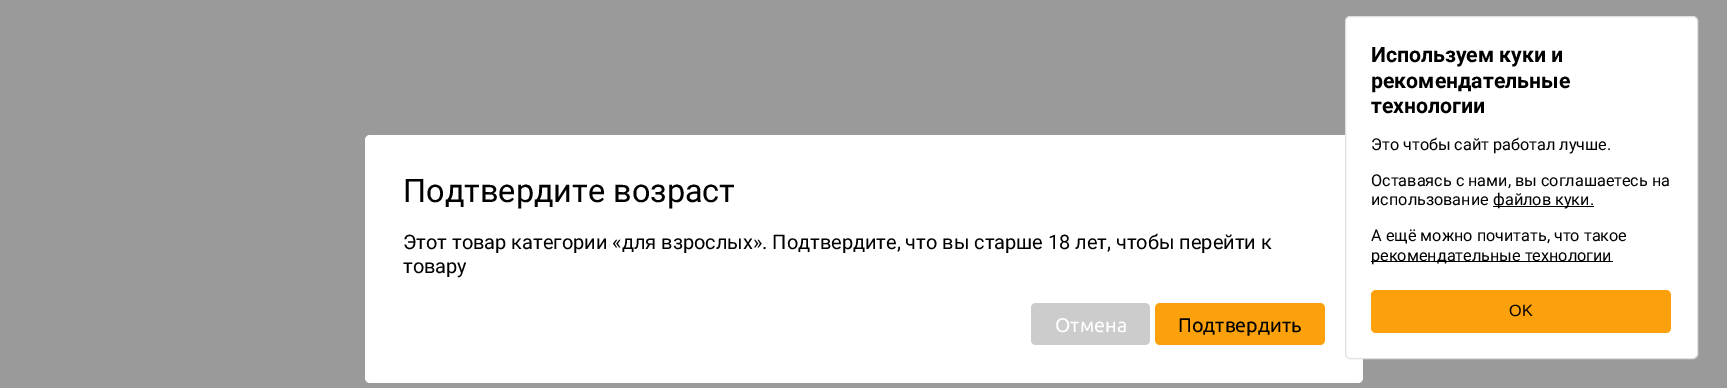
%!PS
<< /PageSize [1727 388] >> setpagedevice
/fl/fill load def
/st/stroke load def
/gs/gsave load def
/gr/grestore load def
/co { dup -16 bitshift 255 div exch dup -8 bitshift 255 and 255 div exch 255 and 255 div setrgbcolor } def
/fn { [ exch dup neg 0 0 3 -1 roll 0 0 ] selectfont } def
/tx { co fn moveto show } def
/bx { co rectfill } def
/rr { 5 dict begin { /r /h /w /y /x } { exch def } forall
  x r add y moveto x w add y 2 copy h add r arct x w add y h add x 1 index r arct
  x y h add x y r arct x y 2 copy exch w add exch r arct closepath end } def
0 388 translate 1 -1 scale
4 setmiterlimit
0 0 1727 388 16#9A9A9A bx
16#FFFFFF co
365 135 998 248 5 rr fl
16#CCCCCC co
1031 303 119 42 5 rr fl
16#FCA10B co
1155 303 170 42 5 rr fl
16#FFFFFF co
1345.5 16.5 352 342 4.5 rr gs fl gr
16#E0E0E0 co
st
1493 206 101 1 16#000000 bx
1371 261 242 1 16#000000 bx
16#FCA10B co
1371 290 300 43 5 rr fl
(Подтвердите возраст) 403 202 /Roboto-Regular 32.5 16#000000 tx
(Этот товар категории «для взрослых». Подтвердите, что вы старше 18 лет, чтобы перейти к) 403 249 /Roboto-Regular 20 16#000000 tx
(товару) 403 273 /Roboto-Regular 20 16#000000 tx
(Отмена) 1055 332 /Ubuntu-Regular 19.75 16#FFFFFF tx
(Подтвердить) 1178 332 /Ubuntu-Regular 19.75 16#000000 tx
(Используем куки и) 1371 62 /Roboto-Bold 21.25 16#000000 tx
(рекомендательные) 1371 88 /Roboto-Bold 21.25 16#000000 tx
(технологии) 1371 113 /Roboto-Bold 21.25 16#000000 tx
(Это чтобы сайт работал лучше.) 1371 150 /Roboto-Regular 16.25 16#000000 tx
(Оставаясь с нами, вы соглашаетесь на) 1371 186 /Roboto-Regular 16.25 16#000000 tx
(использование) 1371 205 /Roboto-Regular 16.25 16#000000 tx
(файлов куки.) 1493 205 /Roboto-Regular 16.25 16#000000 tx
(А ещё можно почитать, что такое) 1371 241 /Roboto-Regular 16.25 16#000000 tx
(рекомендательные технологии) 1371 261 /Roboto-Regular 16.25 16#000000 tx
(OK) 1509 316 /LiberationSans-Regular 16.25 16#000000 tx
showpage
